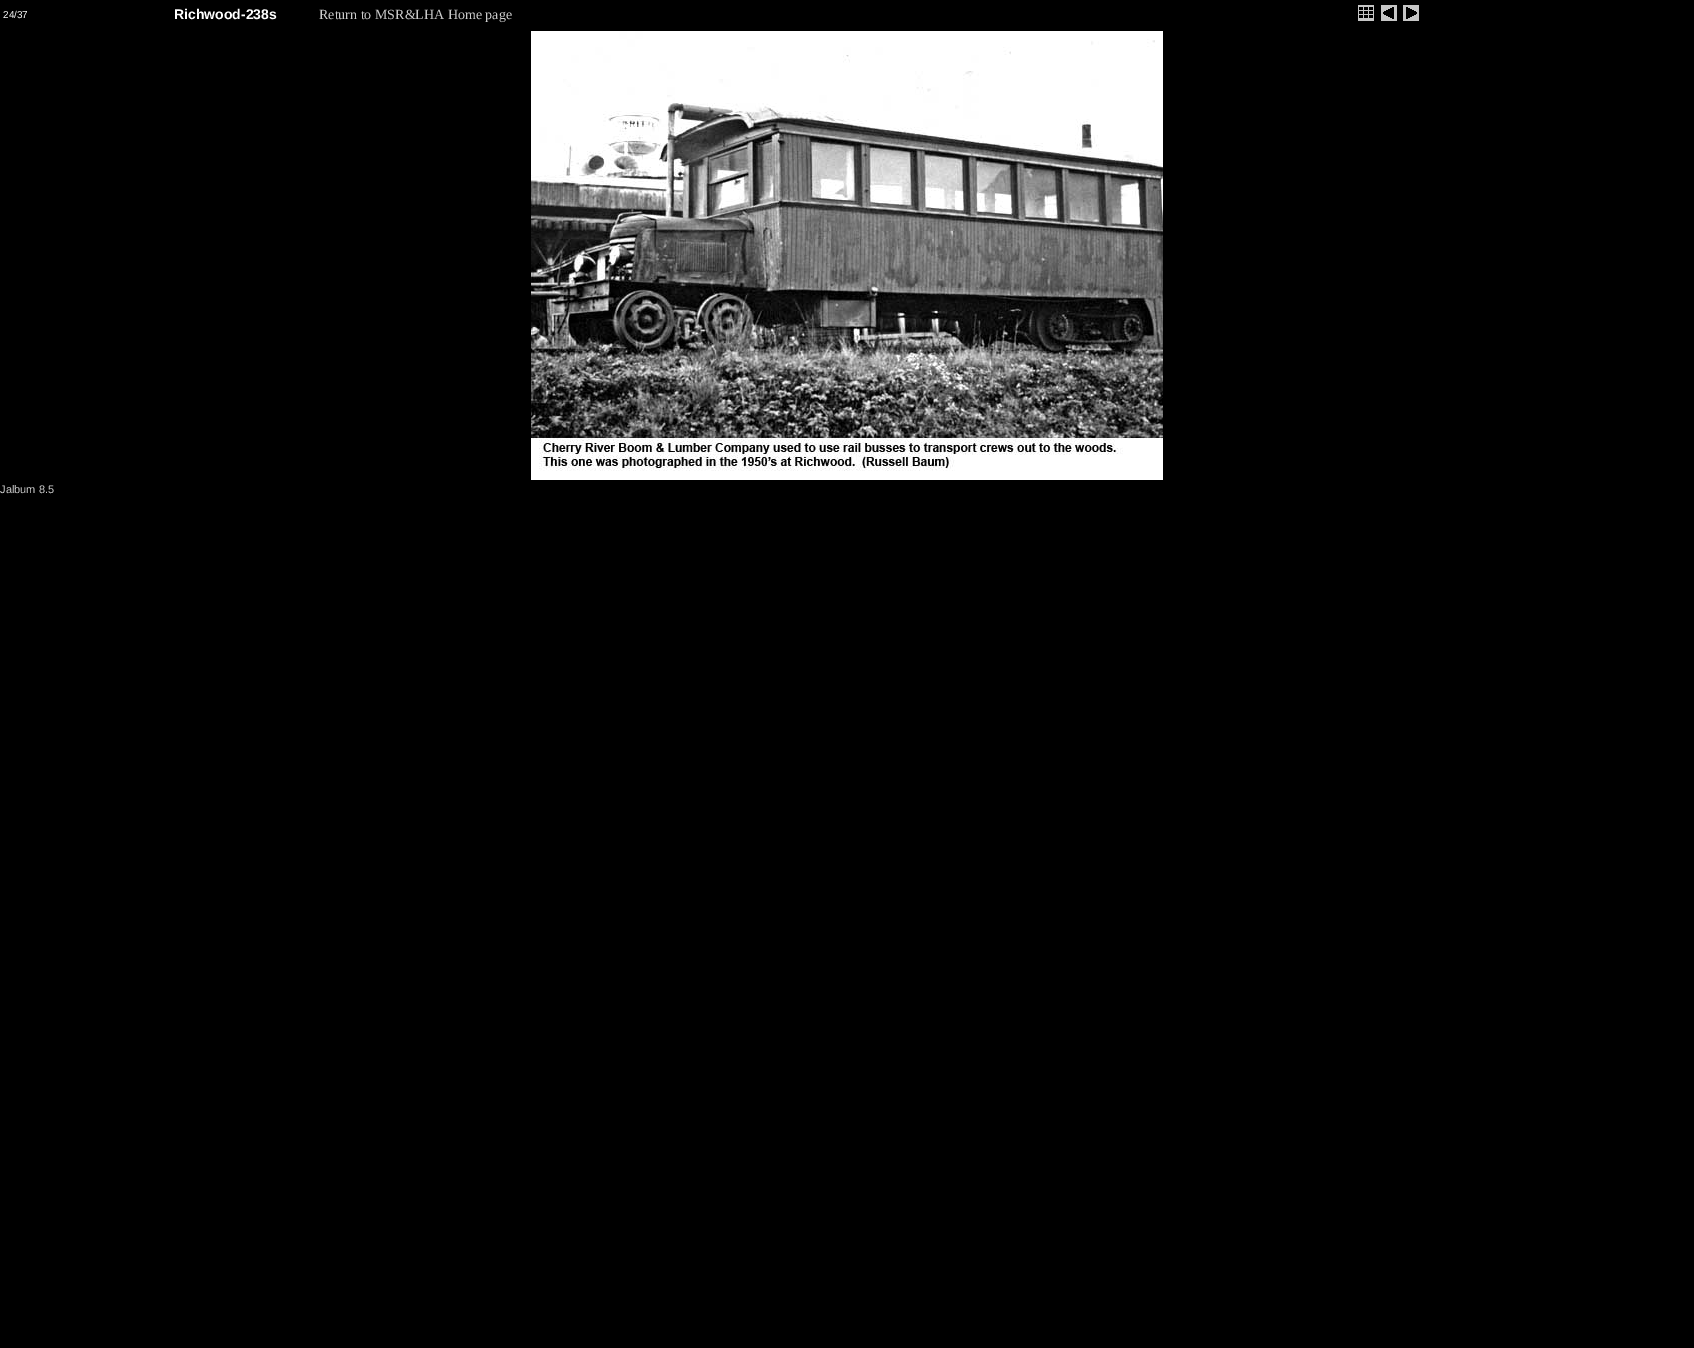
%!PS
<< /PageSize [1694 1348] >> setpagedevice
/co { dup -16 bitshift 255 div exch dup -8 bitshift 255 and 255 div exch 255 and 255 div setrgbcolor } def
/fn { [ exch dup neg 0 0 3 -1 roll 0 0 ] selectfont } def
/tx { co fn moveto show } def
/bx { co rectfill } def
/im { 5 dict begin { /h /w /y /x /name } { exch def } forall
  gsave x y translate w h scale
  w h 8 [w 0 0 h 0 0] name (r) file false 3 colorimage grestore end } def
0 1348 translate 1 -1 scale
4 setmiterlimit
0 0 1694 1348 16#000000 bx
(media/1.raw) 1358 5 16 16 im
(media/2.raw) 1381 5 16 16 im
(media/3.raw) 1403 5 16 16 im
(media/4.raw) 531 31 632 449 im
(24/37) 3 18 /LiberationSans-Regular 10 16#FFFFFF tx
(Richwood-238s) 174 19 /LiberationSans-Bold 14 16#FFFFFF tx
(Return to MSR&LHA Home page) 319 19 /LiberationSerif-Regular 14 16#CCCCCC tx
(Jalbum 8.5) 0 493 /LiberationSans-Regular 11 16#CCCCCC tx
showpage
